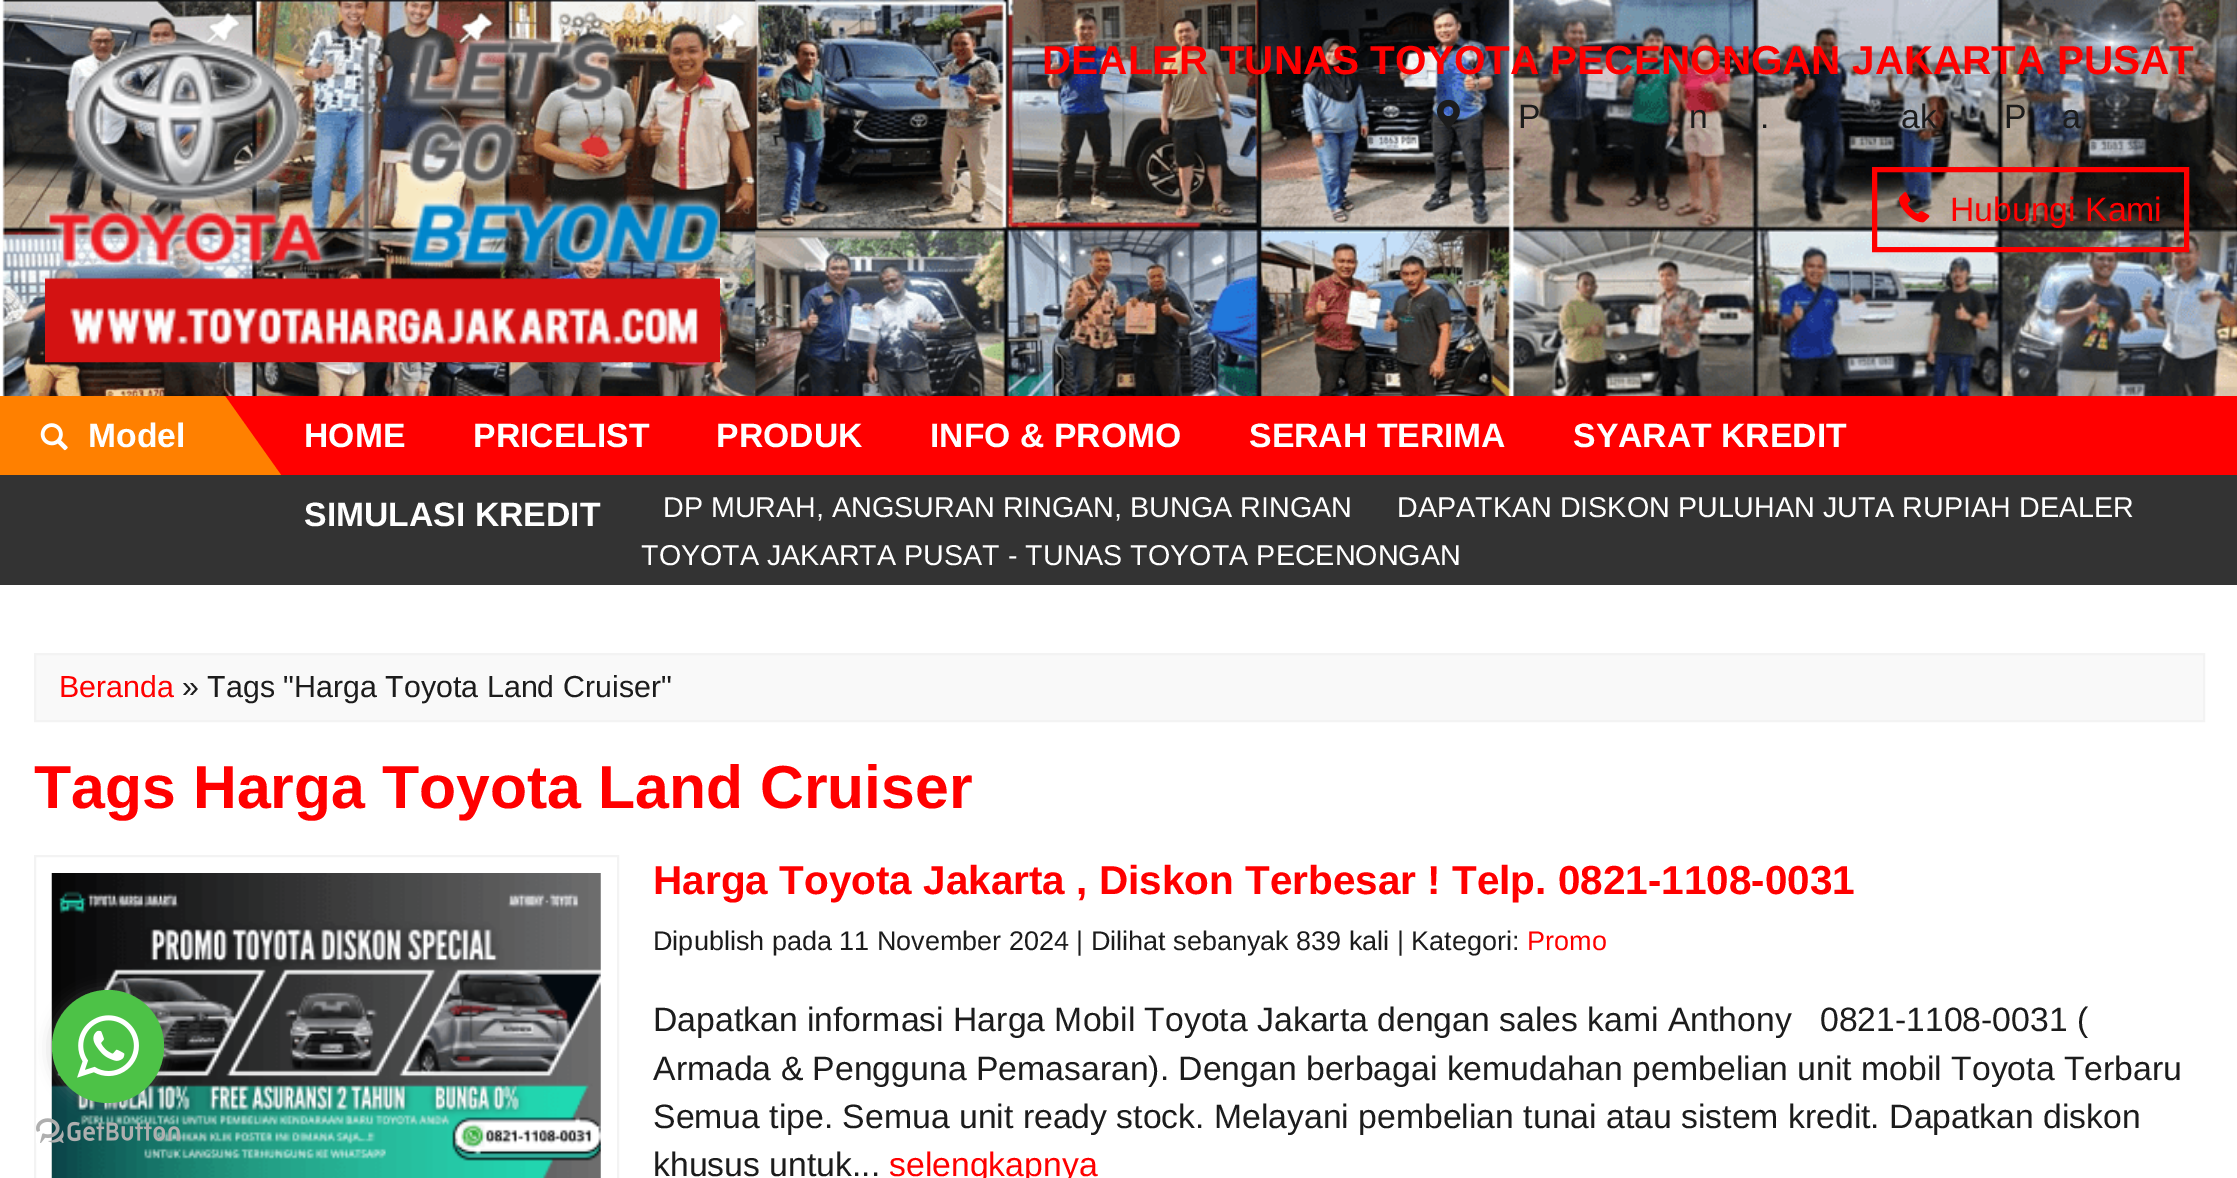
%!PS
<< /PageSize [2237 1178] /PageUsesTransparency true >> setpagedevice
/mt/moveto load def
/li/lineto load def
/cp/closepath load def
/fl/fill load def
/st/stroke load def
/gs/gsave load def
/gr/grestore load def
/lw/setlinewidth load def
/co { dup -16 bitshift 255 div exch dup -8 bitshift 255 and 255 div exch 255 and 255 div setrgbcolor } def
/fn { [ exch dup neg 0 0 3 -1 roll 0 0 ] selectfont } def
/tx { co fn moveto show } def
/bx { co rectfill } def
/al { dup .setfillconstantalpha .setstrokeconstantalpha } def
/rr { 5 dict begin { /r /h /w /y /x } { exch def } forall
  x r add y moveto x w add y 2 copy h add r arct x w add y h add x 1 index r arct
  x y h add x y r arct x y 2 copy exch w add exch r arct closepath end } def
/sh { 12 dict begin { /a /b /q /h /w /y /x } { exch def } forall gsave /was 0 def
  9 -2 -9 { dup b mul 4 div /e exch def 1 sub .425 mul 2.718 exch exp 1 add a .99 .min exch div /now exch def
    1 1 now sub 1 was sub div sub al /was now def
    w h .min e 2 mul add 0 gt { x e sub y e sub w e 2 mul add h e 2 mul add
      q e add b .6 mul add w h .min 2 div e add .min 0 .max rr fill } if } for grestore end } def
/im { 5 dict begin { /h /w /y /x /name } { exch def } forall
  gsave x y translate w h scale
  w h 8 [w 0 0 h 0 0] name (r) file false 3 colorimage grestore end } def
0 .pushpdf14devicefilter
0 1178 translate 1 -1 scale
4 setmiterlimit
0 0 2237 1178 16#FFFFFF bx
(media/1.raw) 0 0 2237 396 im
(media/2.raw) 45 34 675 329 im
(media/3.raw) 1437 99 23 31 im
16#FF0000 co
5 lw
1874.5 169.5 312 80 rectstroke
(media/4.raw) 1899 192 31 31 im
225 396 2012 79 16#FF0000 bx
0 396 225 79 16#FF8000 bx
(media/5.raw) 40 423 28 28 im
225 475 mt 225 396 li 281 475 li cp fl
0 475 2237 110 16#333333 bx
16#F9F9F9 co
35 654 mt 2204 654 li 2204 721 li 35 721 li cp gs fl gr
16#F3F3F3 co
2 lw
st
35 856 583 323 rectstroke
(media/6.raw) 51 873 550 305 im
(media/8.raw) 36 1118 144 25 im
16#888888 co
52 992 112 113 56 8 .4 sh
16#4DC247 co
52 990 112 113 56 rr fl
(media/7.raw) 77 1015 62 63 im
(DEALER TUNAS TOYOTA PECENONGAN JAKARTA PUSAT) 1042 74 /LiberationSans-Bold 40.5 16#FF0000 tx
(P) 1518 128 /LiberationSans-Regular 33.75 16#1C1C1C tx
(n) 1689 128 /LiberationSans-Regular 33.75 16#1C1C1C tx
(.) 1760 128 /LiberationSans-Regular 33.75 16#1C1C1C tx
(ak) 1901 128 /LiberationSans-Regular 33.75 16#1C1C1C tx
(P) 2004 128 /LiberationSans-Regular 33.75 16#1C1C1C tx
(a) 2062 128 /LiberationSans-Regular 33.75 16#1C1C1C tx
(Hubungi Kami) 1950 221 /LiberationSans-Regular 33.75 16#FF0000 tx
(Model) 88 447 /LiberationSans-Bold 33.75 16#FFFFFF tx
(HOME) 304 447 /LiberationSans-Bold 33.75 16#FFFFFF tx
(PRICELIST) 473 447 /LiberationSans-Bold 33.75 16#FFFFFF tx
(PRODUK) 716 447 /LiberationSans-Bold 33.75 16#FFFFFF tx
(INFO & PROMO) 930 447 /LiberationSans-Bold 33.75 16#FFFFFF tx
(SERAH TERIMA) 1249 447 /LiberationSans-Bold 33.75 16#FFFFFF tx
(SYARAT KREDIT) 1573 447 /LiberationSans-Bold 33.75 16#FFFFFF tx
(SIMULASI KREDIT) 304 526 /LiberationSans-Bold 33.75 16#FFFFFF tx
(DP MURAH, ANGSURAN RINGAN, BUNGA RINGAN) 663 517 /LiberationSans-Regular 28.7 16#FFFFFF tx
(DAPATKAN DISKON PULUHAN JUTA RUPIAH DEALER) 1397 517 /LiberationSans-Regular 28.7 16#FFFFFF tx
(TOYOTA JAKARTA PUSAT - TUNAS TOYOTA PECENONGAN) 641 565 /LiberationSans-Regular 28.7 16#FFFFFF tx
(Beranda) 59 697 /LiberationSans-Regular 30.4 16#FF0000 tx
(» Tags "Harga Toyota Land Cruiser") 182 697 /LiberationSans-Regular 30.4 16#1C1C1C tx
(Tags Harga Toyota Land Cruiser) 34 808 /LiberationSans-Bold 60.75 16#FF0000 tx
(Harga Toyota Jakarta , Diskon Terbesar ! Telp. 0821-1108-0031) 653 894 /LiberationSans-Bold 40.5 16#FF0000 tx
(Dipublish pada 11 November 2024 | Dilihat sebanyak 839 kali | Kategori:) 653 950 /LiberationSans-Regular 27 16#1C1C1C tx
(Promo) 1527 950 /LiberationSans-Regular 27 16#FF0000 tx
(Dapatkan informasi Harga Mobil Toyota Jakarta dengan sales kami Anthony   0821-1108-0031 \() 653 1031 /LiberationSans-Regular 33.75 16#1C1C1C tx
(Armada & Pengguna Pemasaran\). Dengan berbagai kemudahan pembelian unit mobil Toyota Terbaru) 653 1080 /LiberationSans-Regular 33.75 16#1C1C1C tx
(Semua tipe. Semua unit ready stock. Melayani pembelian tunai atau sistem kredit. Dapatkan diskon) 653 1128 /LiberationSans-Regular 33.75 16#1C1C1C tx
(khusus untuk...) 653 1176 /LiberationSans-Regular 33.75 16#1C1C1C tx
(selengkapnya) 889 1176 /LiberationSans-Regular 33.75 16#FF0000 tx
.poppdf14devicefilter showpage
